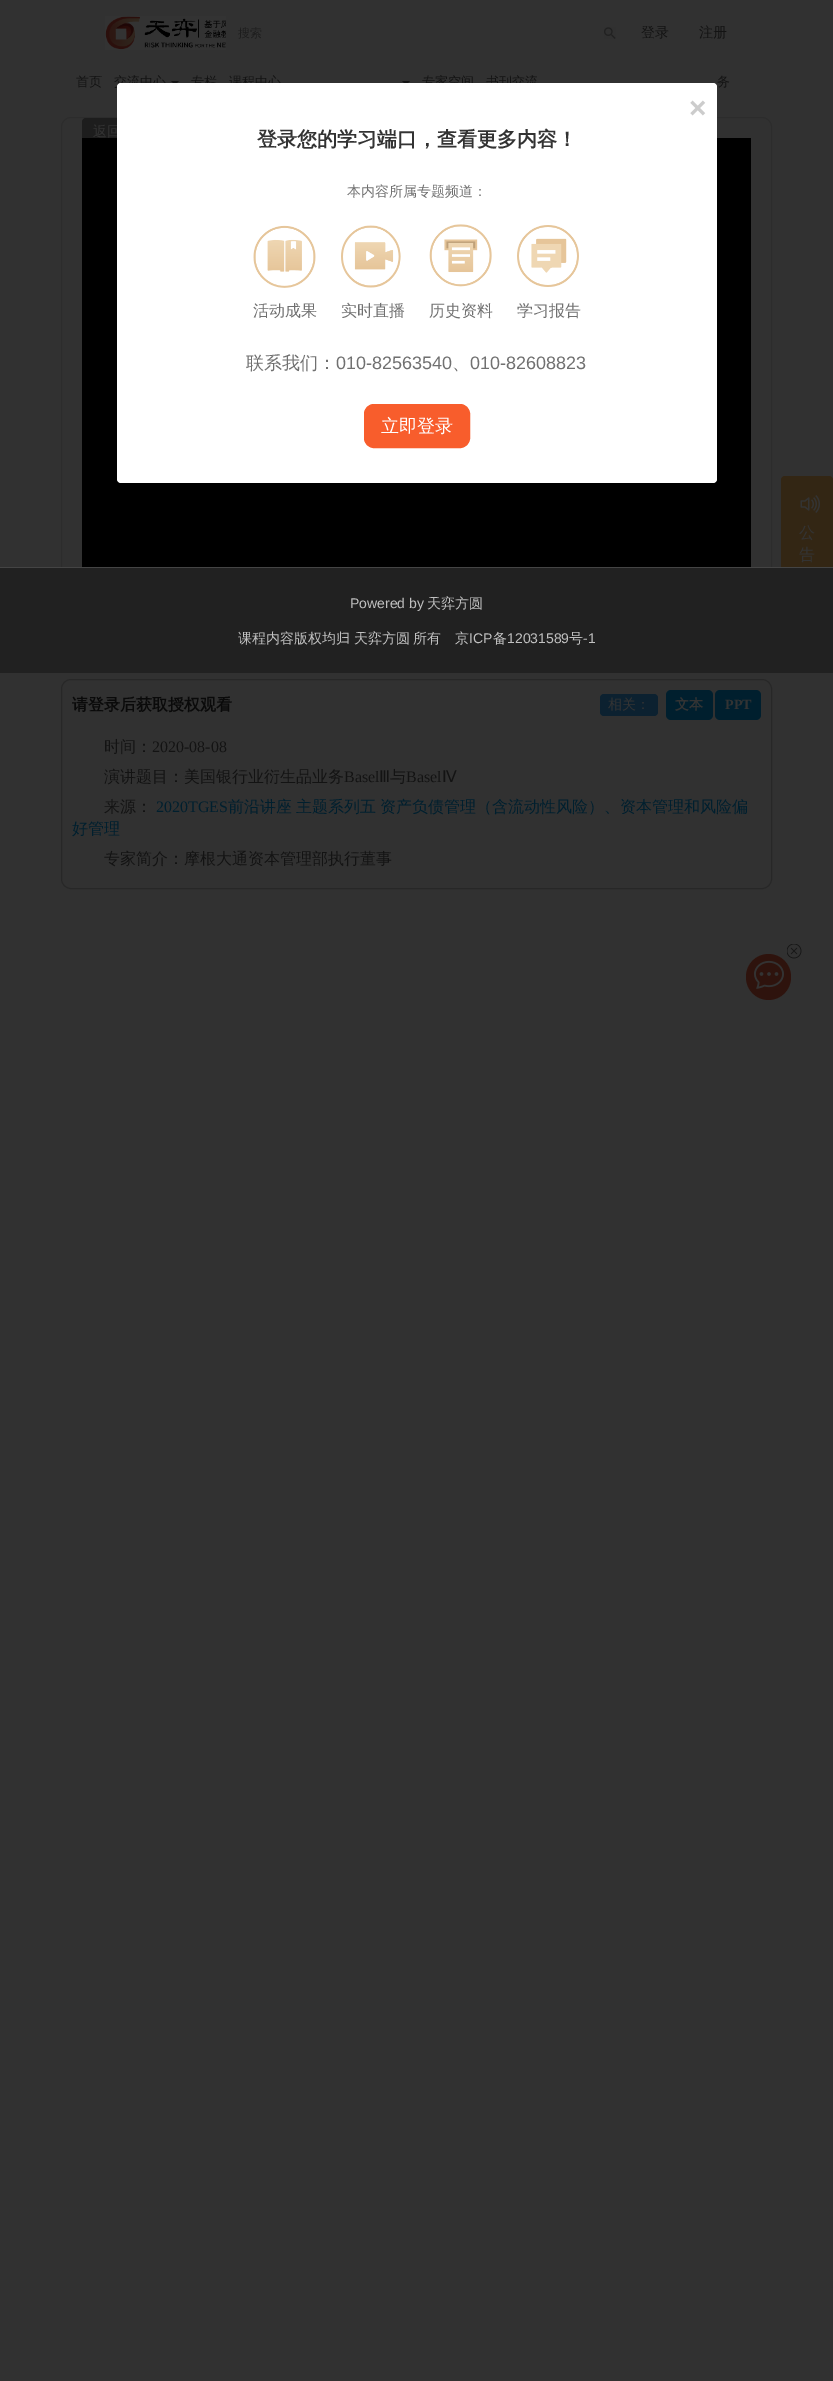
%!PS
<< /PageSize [833 2381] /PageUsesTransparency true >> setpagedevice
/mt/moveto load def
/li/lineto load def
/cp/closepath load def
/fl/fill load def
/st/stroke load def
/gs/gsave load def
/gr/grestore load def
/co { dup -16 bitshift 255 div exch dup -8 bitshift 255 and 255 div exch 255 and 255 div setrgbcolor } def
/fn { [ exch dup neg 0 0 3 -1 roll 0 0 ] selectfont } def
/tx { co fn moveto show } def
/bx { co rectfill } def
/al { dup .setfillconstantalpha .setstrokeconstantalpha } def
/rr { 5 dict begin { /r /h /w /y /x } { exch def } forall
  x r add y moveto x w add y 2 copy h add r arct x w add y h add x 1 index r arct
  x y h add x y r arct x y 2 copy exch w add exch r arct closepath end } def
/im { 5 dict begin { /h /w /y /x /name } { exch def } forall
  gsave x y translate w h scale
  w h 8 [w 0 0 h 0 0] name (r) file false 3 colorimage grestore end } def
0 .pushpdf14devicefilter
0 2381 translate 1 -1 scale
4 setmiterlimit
0 0 833 2381 16#313131 bx
(media/1.raw) 105 16 121 34 im
(media/2.raw) 604 27 12 12 im
16#131313 co
171 81 mt 179 81 li 175 85 li cp fl
402 81 mt 410 81 li 406 85 li cp fl
16#332614 co
781 476 52 106 4 rr fl
(media/3.raw) 800 495 20 18 im
16#2E130D co
746 954 45 46 22.5 rr fl
(media/4.raw) 787 944 15 15 im
(media/5.raw) 754 960 30 29 im
16#2C2C2C co
61.5 117.5 710 541 9.5 rr st
0 568 833 105 16#212121 bx
0 567 833 1 16#444444 bx
82 138 669 429 16#000000 bx
0.4 al
82 118 92 28 4 rr fl
1 al
16#272727 co
61.5 679.5 710 209 9.5 rr st
16#0C2130 co
600 694 58 22 4 rr fl
16#001F2E co
666 690 47 30 5 rr fl
715 690 46 30 5 rr fl
(搜索) 238 37 /WenQuanYiZenHei-Medium 12 16#1D1D1D tx
(登录) 641 37 /WenQuanYiZenHei-Medium 14 16#131313 tx
(注册) 699 37 /WenQuanYiZenHei-Medium 14 16#131313 tx
(首页) 76 86 /WenQuanYiZenHei-Medium 13 16#131313 tx
(交流中心) 114 86 /WenQuanYiZenHei-Medium 13 16#131313 tx
(专栏) 191 86 /WenQuanYiZenHei-Medium 13 16#131313 tx
(课程中心) 229 86 /WenQuanYiZenHei-Medium 13 16#131313 tx
(专家空间) 422 86 /WenQuanYiZenHei-Medium 13 16#131313 tx
(书刊交流) 486 86 /WenQuanYiZenHei-Medium 13 16#131313 tx
(务) 717 86 /WenQuanYiZenHei-Medium 13 16#131313 tx
(公) 799 538 /WenQuanYiZenHei-Medium 16 16#333333 tx
(告) 799 560 /WenQuanYiZenHei-Medium 16 16#333333 tx
(Powered by) 350 608 /LiberationSans-Regular 14 16#C1C1C1 tx
(天弈方圆) 427 608 /WenQuanYiZenHei-Medium 14 16#C1C1C1 tx
(课程内容版权均归) 238 643 /WenQuanYiZenHei-Medium 14 16#C1C1C1 tx
(天弈方圆) 354 643 /WenQuanYiZenHei-Medium 14 16#C1C1C1 tx
(所有) 413 643 /WenQuanYiZenHei-Medium 14 16#C1C1C1 tx
(京) 455 643 /WenQuanYiZenHei-Medium 14 16#C1C1C1 tx
(ICP) 469 643 /LiberationSans-Regular 14 16#C1C1C1 tx
(备) 493 643 /WenQuanYiZenHei-Medium 14 16#C1C1C1 tx
(12031589) 507 643 /LiberationSans-Regular 14 16#C1C1C1 tx
(号) 569 643 /WenQuanYiZenHei-Medium 14 16#C1C1C1 tx
(-1) 583 643 /LiberationSans-Regular 14 16#C1C1C1 tx
(返回) 93 136 /WenQuanYiZenHei-Medium 14 16#333333 tx
16#FFFFFF co
117 83 600 400 4 rr fl
(×) 689 118 /LiberationSans-Bold 30 16#CCCCCC tx
(media/9.raw) 517 225 62 62 im
(学习报告) 517 316 /WenQuanYiZenHei-Medium 16 16#707070 tx
(media/8.raw) 429 224 63 63 im
(历史资料) 429 316 /WenQuanYiZenHei-Medium 16 16#707070 tx
(media/7.raw) 341 225 60 63 im
(实时直播) 341 316 /WenQuanYiZenHei-Medium 16 16#707070 tx
(media/6.raw) 253 225 63 63 im
(活动成果) 253 316 /WenQuanYiZenHei-Medium 16 16#707070 tx
16#F85D2C co
364.5 404.5 105 43 9.5 rr gs fl gr
st
(立即登录) 381 432 /WenQuanYiZenHei-Medium 18 16#FFFFFF tx
(010-82608823) 470 369 /LiberationSans-Regular 18 16#707070 tx
(、) 452 369 /WenQuanYiZenHei-Medium 18 16#707070 tx
(010-82563540) 336 369 /LiberationSans-Regular 18 16#707070 tx
(联系我们：) 246 369 /WenQuanYiZenHei-Medium 18 16#707070 tx
(本内容所属专题频道：) 347 196 /WenQuanYiZenHei-Medium 14 16#707070 tx
(登录您的学习端口，查看更多内容！) 257 146 /WenQuanYiZenHei-Bold 20 16#333333 tx
(请登录后获取授权观看) 72 710 /WenQuanYiZenHei-Bold 16 16#0A0A0A tx
(相关：) 608 709 /WenQuanYiZenHei-Medium 14 16#333333 tx
(文本) 675 709 /WenQuanYiZenHei-Bold 14 16#333333 tx
(PPT) 725 709 /LiberationSerif-Bold 14 16#333333 tx
(时间：) 104 752 /WenQuanYiZenHei-Medium 16 16#131313 tx
(2020-08-08) 152 752 /LiberationSerif-Regular 16 16#131313 tx
(演讲题目：美国银行业衍生品业务) 104 782 /WenQuanYiZenHei-Medium 16 16#131313 tx
(Basel) 344 782 /LiberationSerif-Regular 16 16#131313 tx
(Ⅲ) 379 782 /DejaVuSans-Regular 16 16#131313 tx
(与) 390 782 /WenQuanYiZenHei-Medium 16 16#131313 tx
(Basel) 406 782 /LiberationSerif-Regular 16 16#131313 tx
(Ⅳ) 442 782 /DejaVuSans-Regular 16 16#131313 tx
(来源：) 104 812 /WenQuanYiZenHei-Medium 16 16#131313 tx
(2020TGES) 156 812 /LiberationSerif-Regular 16 16#001F2E tx
/WenQuanYiZenHei-Medium 16 fn
228 812 mt -1 0 32 (前沿讲座 主题系列五 资产负债管理（含流动性风险）、资本管理和风险偏) widthshow
(好管理) 72 834 /WenQuanYiZenHei-Medium 16 16#001F2E tx
(专家简介：摩根大通资本管理部执行董事) 104 864 /WenQuanYiZenHei-Medium 16 16#131313 tx
.poppdf14devicefilter showpage
